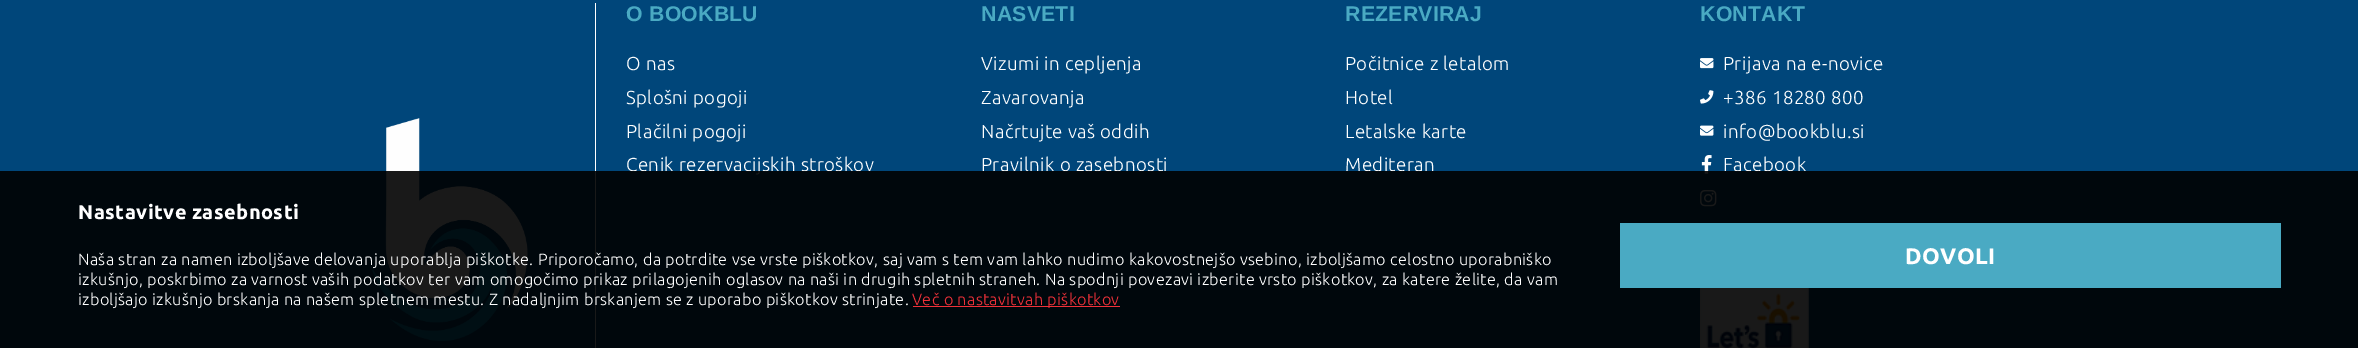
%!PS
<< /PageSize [2358 348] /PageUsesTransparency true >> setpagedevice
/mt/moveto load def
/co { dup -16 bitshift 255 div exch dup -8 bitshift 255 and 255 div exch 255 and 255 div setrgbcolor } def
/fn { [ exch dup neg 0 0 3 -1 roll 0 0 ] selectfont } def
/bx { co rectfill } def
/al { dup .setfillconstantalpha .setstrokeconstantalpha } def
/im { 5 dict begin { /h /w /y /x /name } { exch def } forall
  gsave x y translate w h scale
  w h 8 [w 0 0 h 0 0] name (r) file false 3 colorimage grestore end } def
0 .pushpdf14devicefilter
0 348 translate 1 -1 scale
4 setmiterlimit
0 0 2358 348 16#00467A bx
595 3 1 345 16#FFFFFF bx
(media/1.raw) 371 118 157 223 im
(media/2.raw) 1700 58 14 11 im
(media/3.raw) 1700 90 14 14 im
(media/4.raw) 1700 125 14 11 im
(media/5.raw) 1701 155 11 19 im
(media/6.raw) 1700 190 17 17 im
(media/7.raw) 1700 288 109 60 im
/LiberationSans-Bold 21.25 fn
16#4AAAC3 co
626 21 mt .25 0 (O BOOKBLU) ashow
/Ubuntu-Light 18.75 fn
16#FFFFFF co
626 70 mt .4 0 (O nas) ashow
626 104 mt .4 0 (Splošni pogoji) ashow
626 138 mt .4 0 (Plačilni pogoji) ashow
626 171 mt .4 0 (Cenik rezervacijskih stroškov) ashow
/LiberationSans-Bold 21.25 fn
16#4AAAC3 co
981 21 mt .25 0 (NASVETI) ashow
/Ubuntu-Light 18.75 fn
16#FFFFFF co
981 70 mt .4 0 (Vizumi in cepljenja) ashow
981 104 mt .4 0 (Zavarovanja) ashow
981 138 mt .4 0 (Načrtujte vaš oddih) ashow
981 171 mt .4 0 (Pravilnik o zasebnosti) ashow
/LiberationSans-Bold 21.25 fn
16#4AAAC3 co
1345 21 mt .25 0 (REZERVIRAJ) ashow
/Ubuntu-Light 18.75 fn
16#FFFFFF co
1345 70 mt .4 0 (Počitnice z letalom) ashow
1345 104 mt .4 0 (Hotel) ashow
1345 138 mt .4 0 (Letalske karte) ashow
1345 171 mt .4 0 (Mediteran) ashow
/LiberationSans-Bold 21.25 fn
16#4AAAC3 co
1700 21 mt .25 0 (KONTAKT) ashow
/Ubuntu-Light 18.75 fn
16#FFFFFF co
1723 70 mt .4 0 (Prijava na e-novice) ashow
1723 104 mt .4 0 (+386 18280 800) ashow
1723 138 mt .4 0 (info@bookblu.si) ashow
1723 171 mt .4 0 (Facebook) ashow
0.9 al
0 171 2358 177 16#000000 bx
/Ubuntu-Bold 20 fn
1 al
16#FFFFFF co
78 219 mt .45 0 (Nastavitve zasebnosti) ashow
/Ubuntu-Light 16.25 fn
78 265 mt .33 0 (Naša stran za namen izboljšave delovanja uporablja piškotke. Priporočamo, da potrdite vse vrste piškotkov, saj vam s tem vam lahko nudimo kakovostnejšo vsebino, izboljšamo celostno uporabniško) ashow
78 285 mt .33 0 (izkušnjo, poskrbimo za varnost vaših podatkov ter vam omogočimo prikaz prilagojenih oglasov na naši in drugih spletnih straneh. Na spodnji povezavi izberite vrsto piškotkov, za katere želite, da vam) ashow
78 305 mt .33 0 (izboljšajo izkušnjo brskanja na našem spletnem mestu. Z nadaljnjim brskanjem se z uporabo piškotkov strinjate.) ashow
913 306 207 1 16#F03139 bx
912 305 mt .33 0 (Več o nastavitvah piškotkov) ashow
1620 223 661 65 16#4AAAC3 bx
/Ubuntu-Bold 22.5 fn
16#FFFFFF co
1905 264 mt .4 0 (DOVOLI) ashow
.poppdf14devicefilter showpage
